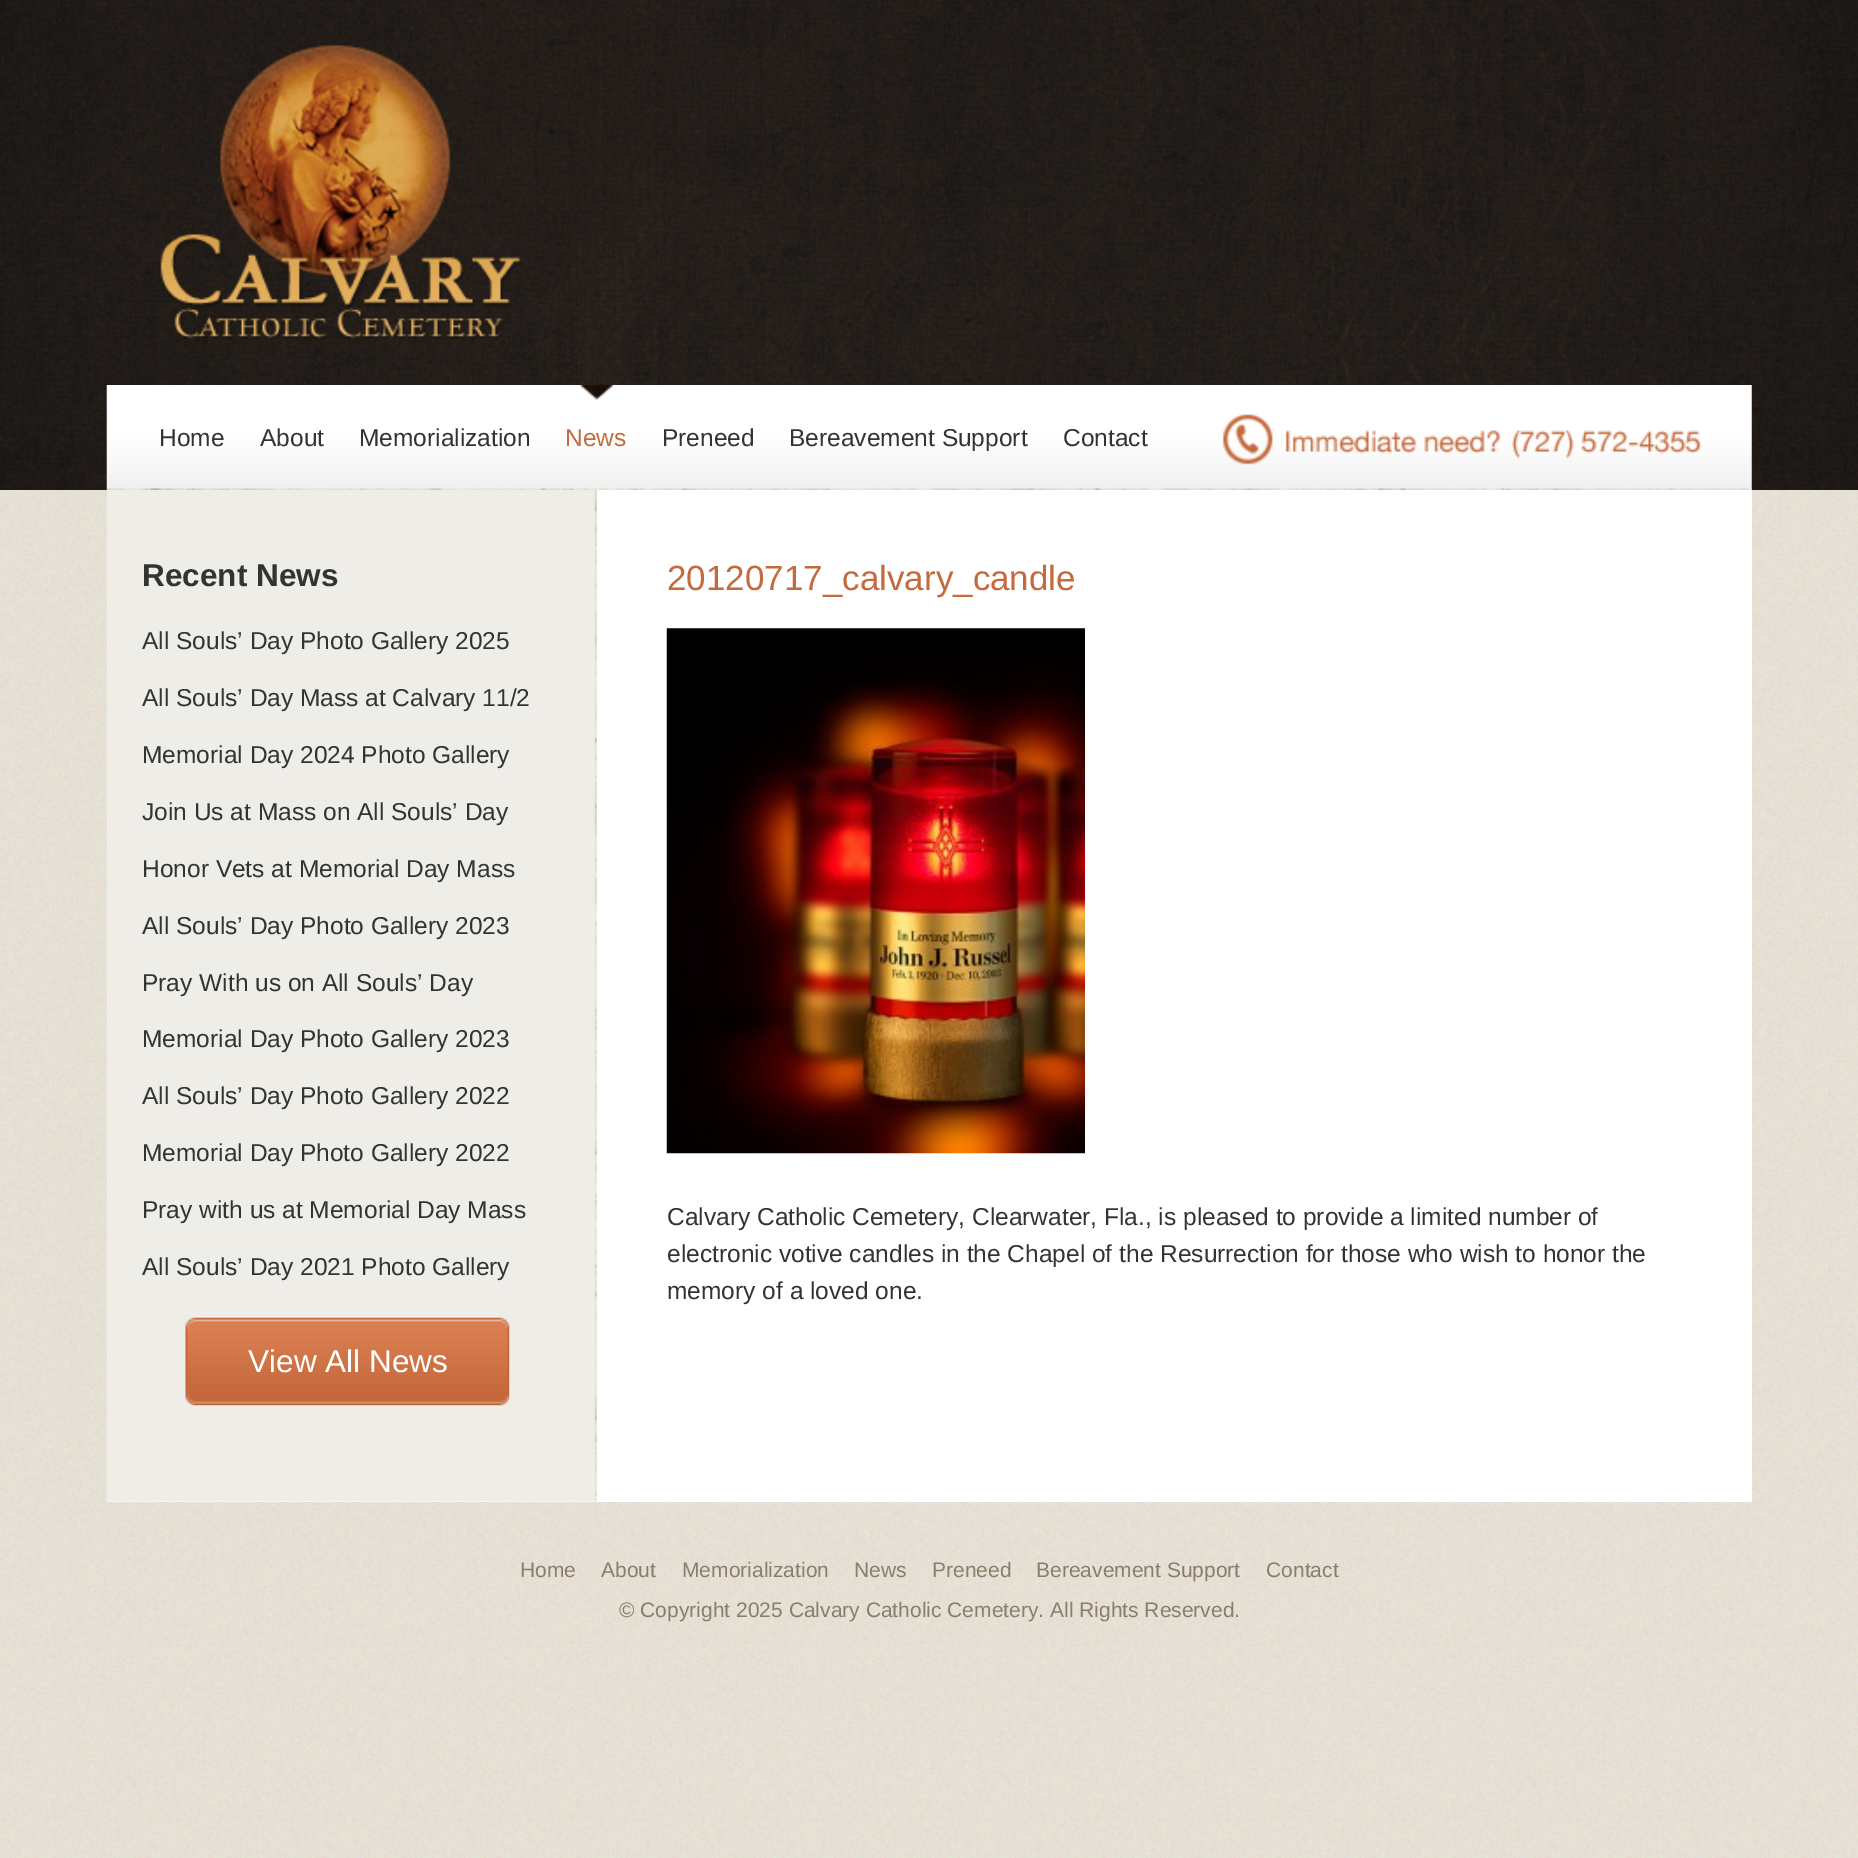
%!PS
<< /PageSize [1858 1858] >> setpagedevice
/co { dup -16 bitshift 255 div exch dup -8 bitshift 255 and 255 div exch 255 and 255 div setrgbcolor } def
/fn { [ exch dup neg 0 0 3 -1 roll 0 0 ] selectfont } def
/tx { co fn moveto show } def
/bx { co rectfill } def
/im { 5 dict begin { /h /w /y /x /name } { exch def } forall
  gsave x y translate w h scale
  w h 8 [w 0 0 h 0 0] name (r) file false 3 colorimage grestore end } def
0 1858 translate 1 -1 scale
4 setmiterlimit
0 0 1858 1858 16#FFFFFF bx
(media/1.raw) 0 490 1858 1368 im
(media/2.raw) 0 0 1858 490 im
(media/3.raw) 160 45 361 295 im
(media/4.raw) 106 385 1646 105 im
(media/5.raw) 579 385 35 15 im
107 490 1645 1012 16#FFFFFF bx
(media/6.raw) 106 490 491 1012 im
(media/7.raw) 185 1317 325 89 im
(media/8.raw) 666 628 419 526 im
(Home) 159 446 /LiberationSans-Regular 24.5 16#333333 tx
(About) 260 446 /LiberationSans-Regular 24.5 16#333333 tx
(Memorialization) 359 446 /LiberationSans-Regular 24.5 16#333333 tx
(News) 565 446 /LiberationSans-Regular 24.5 16#C56A3D tx
(Preneed) 662 446 /LiberationSans-Regular 24.5 16#333333 tx
(Bereavement Support) 789 446 /LiberationSans-Regular 24.5 16#333333 tx
(Contact) 1063 446 /LiberationSans-Regular 24.5 16#333333 tx
(Recent News) 142 586 /LiberationSans-Bold 31.5 16#333333 tx
(All Souls’ Day Photo Gallery 2025) 142 649 /LiberationSans-Regular 24.5 16#333333 tx
(All Souls’ Day Mass at Calvary 11/2) 142 706 /LiberationSans-Regular 24.5 16#333333 tx
(Memorial Day 2024 Photo Gallery) 142 763 /LiberationSans-Regular 24.5 16#333333 tx
(Join Us at Mass on All Souls’ Day) 142 820 /LiberationSans-Regular 24.5 16#333333 tx
(Honor Vets at Memorial Day Mass) 142 877 /LiberationSans-Regular 24.5 16#333333 tx
(All Souls’ Day Photo Gallery 2023) 142 934 /LiberationSans-Regular 24.5 16#333333 tx
(Pray With us on All Souls’ Day) 142 991 /LiberationSans-Regular 24.5 16#333333 tx
(Memorial Day Photo Gallery 2023) 142 1047 /LiberationSans-Regular 24.5 16#333333 tx
(All Souls’ Day Photo Gallery 2022) 142 1104 /LiberationSans-Regular 24.5 16#333333 tx
(Memorial Day Photo Gallery 2022) 142 1161 /LiberationSans-Regular 24.5 16#333333 tx
(Pray with us at Memorial Day Mass) 142 1218 /LiberationSans-Regular 24.5 16#333333 tx
(All Souls’ Day 2021 Photo Gallery) 142 1275 /LiberationSans-Regular 24.5 16#333333 tx
(View All News) 248 1372 /LiberationSans-Regular 31.5 16#FFFFFF tx
(20120717_calvary_candle) 667 590 /LiberationSans-Regular 35 16#C56A3D tx
(Calvary Catholic Cemetery, Clearwater, Fla., is pleased to provide a limited number of) 667 1225 /LiberationSans-Regular 24.5 16#333333 tx
(electronic votive candles in the Chapel of the Resurrection for those who wish to honor the) 667 1262 /LiberationSans-Regular 24.5 16#333333 tx
(memory of a loved one.) 667 1299 /LiberationSans-Regular 24.5 16#333333 tx
(Home) 520 1577 /LiberationSans-Regular 21 16#8A7D6A tx
(About) 601 1577 /LiberationSans-Regular 21 16#8A7D6A tx
(Memorialization) 682 1577 /LiberationSans-Regular 21 16#8A7D6A tx
(News) 854 1577 /LiberationSans-Regular 21 16#8A7D6A tx
(Preneed) 932 1577 /LiberationSans-Regular 21 16#8A7D6A tx
(Bereavement Support) 1036 1577 /LiberationSans-Regular 21 16#8A7D6A tx
(Contact) 1266 1577 /LiberationSans-Regular 21 16#8A7D6A tx
(© Copyright 2025 Calvary Catholic Cemetery. All Rights Reserved.) 619 1617 /LiberationSans-Regular 21 16#8A7D6A tx
showpage
